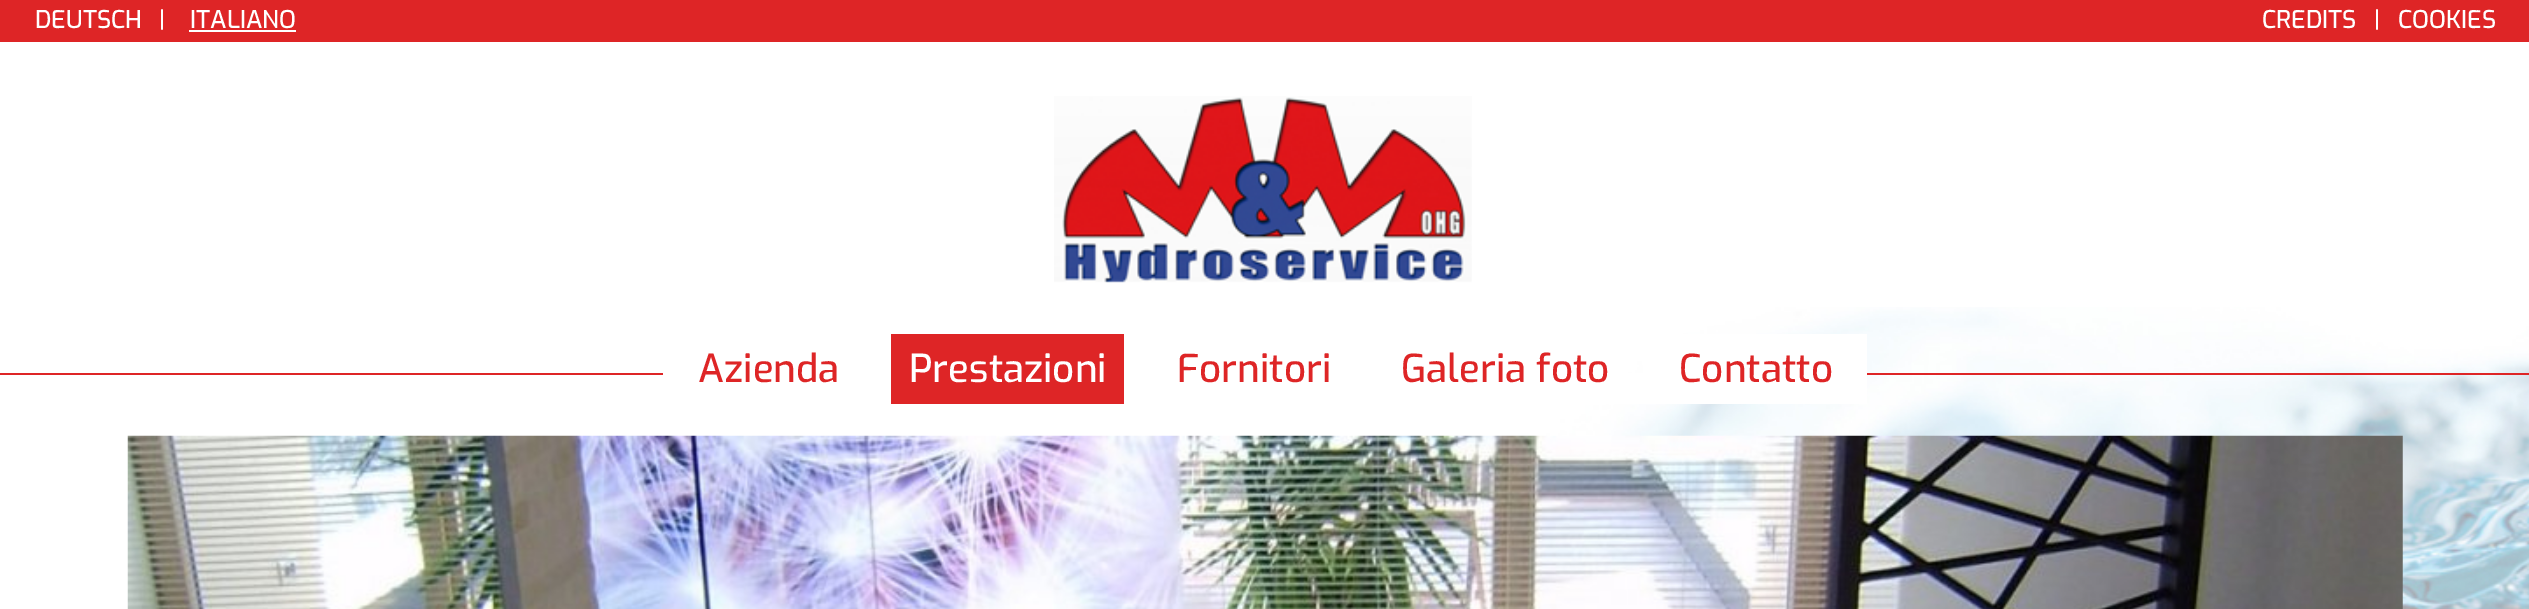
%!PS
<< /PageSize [2529 609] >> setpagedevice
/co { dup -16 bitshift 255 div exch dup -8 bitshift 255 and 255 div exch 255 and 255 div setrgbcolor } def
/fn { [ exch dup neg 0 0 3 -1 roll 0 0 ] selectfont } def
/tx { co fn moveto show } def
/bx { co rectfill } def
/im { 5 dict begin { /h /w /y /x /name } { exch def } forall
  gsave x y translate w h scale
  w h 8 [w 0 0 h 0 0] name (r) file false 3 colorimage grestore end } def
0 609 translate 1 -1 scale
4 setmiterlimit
0 0 2529 609 16#FFFFFF bx
(media/1.raw) 1191 307 1338 302 im
0 0 2529 42 16#DE2526 bx
189 30 107 2 16#FFFFFF bx
(media/2.raw) 1054 96 418 187 im
0 373 2529 2 16#DE2526 bx
663 373 702 2 16#FFFFFF bx
891 334 233 70 16#DE2526 bx
1365 373 278 31 16#FFFFFF bx
1643 334 224 70 16#FFFFFF bx
(media/3.raw) 127 435 2276 174 im
(DEUTSCH) 35 28 /Exo-Medium 24.5 16#FFFFFF tx
(|) 159 28 /Exo-Medium 24.5 16#FFFFFF tx
(ITALIANO) 190 28 /Exo-Medium 24.5 16#FFFFFF tx
(CREDITS) 2262 28 /Exo-Medium 24.5 16#FFFFFF tx
(|) 2374 28 /Exo-Medium 24.5 16#FFFFFF tx
(COOKIES) 2398 28 /Exo-Medium 24.5 16#FFFFFF tx
(Azienda) 698 382 /Exo-Medium 38.5 16#DE2526 tx
(Prestazioni) 909 382 /Exo-Medium 38.5 16#FFFFFF tx
(Fornitori) 1177 382 /Exo-Medium 38.5 16#DE2526 tx
(Galeria foto) 1401 382 /Exo-Medium 38.5 16#DE2526 tx
(Contatto) 1679 382 /Exo-Medium 38.5 16#DE2526 tx
showpage
